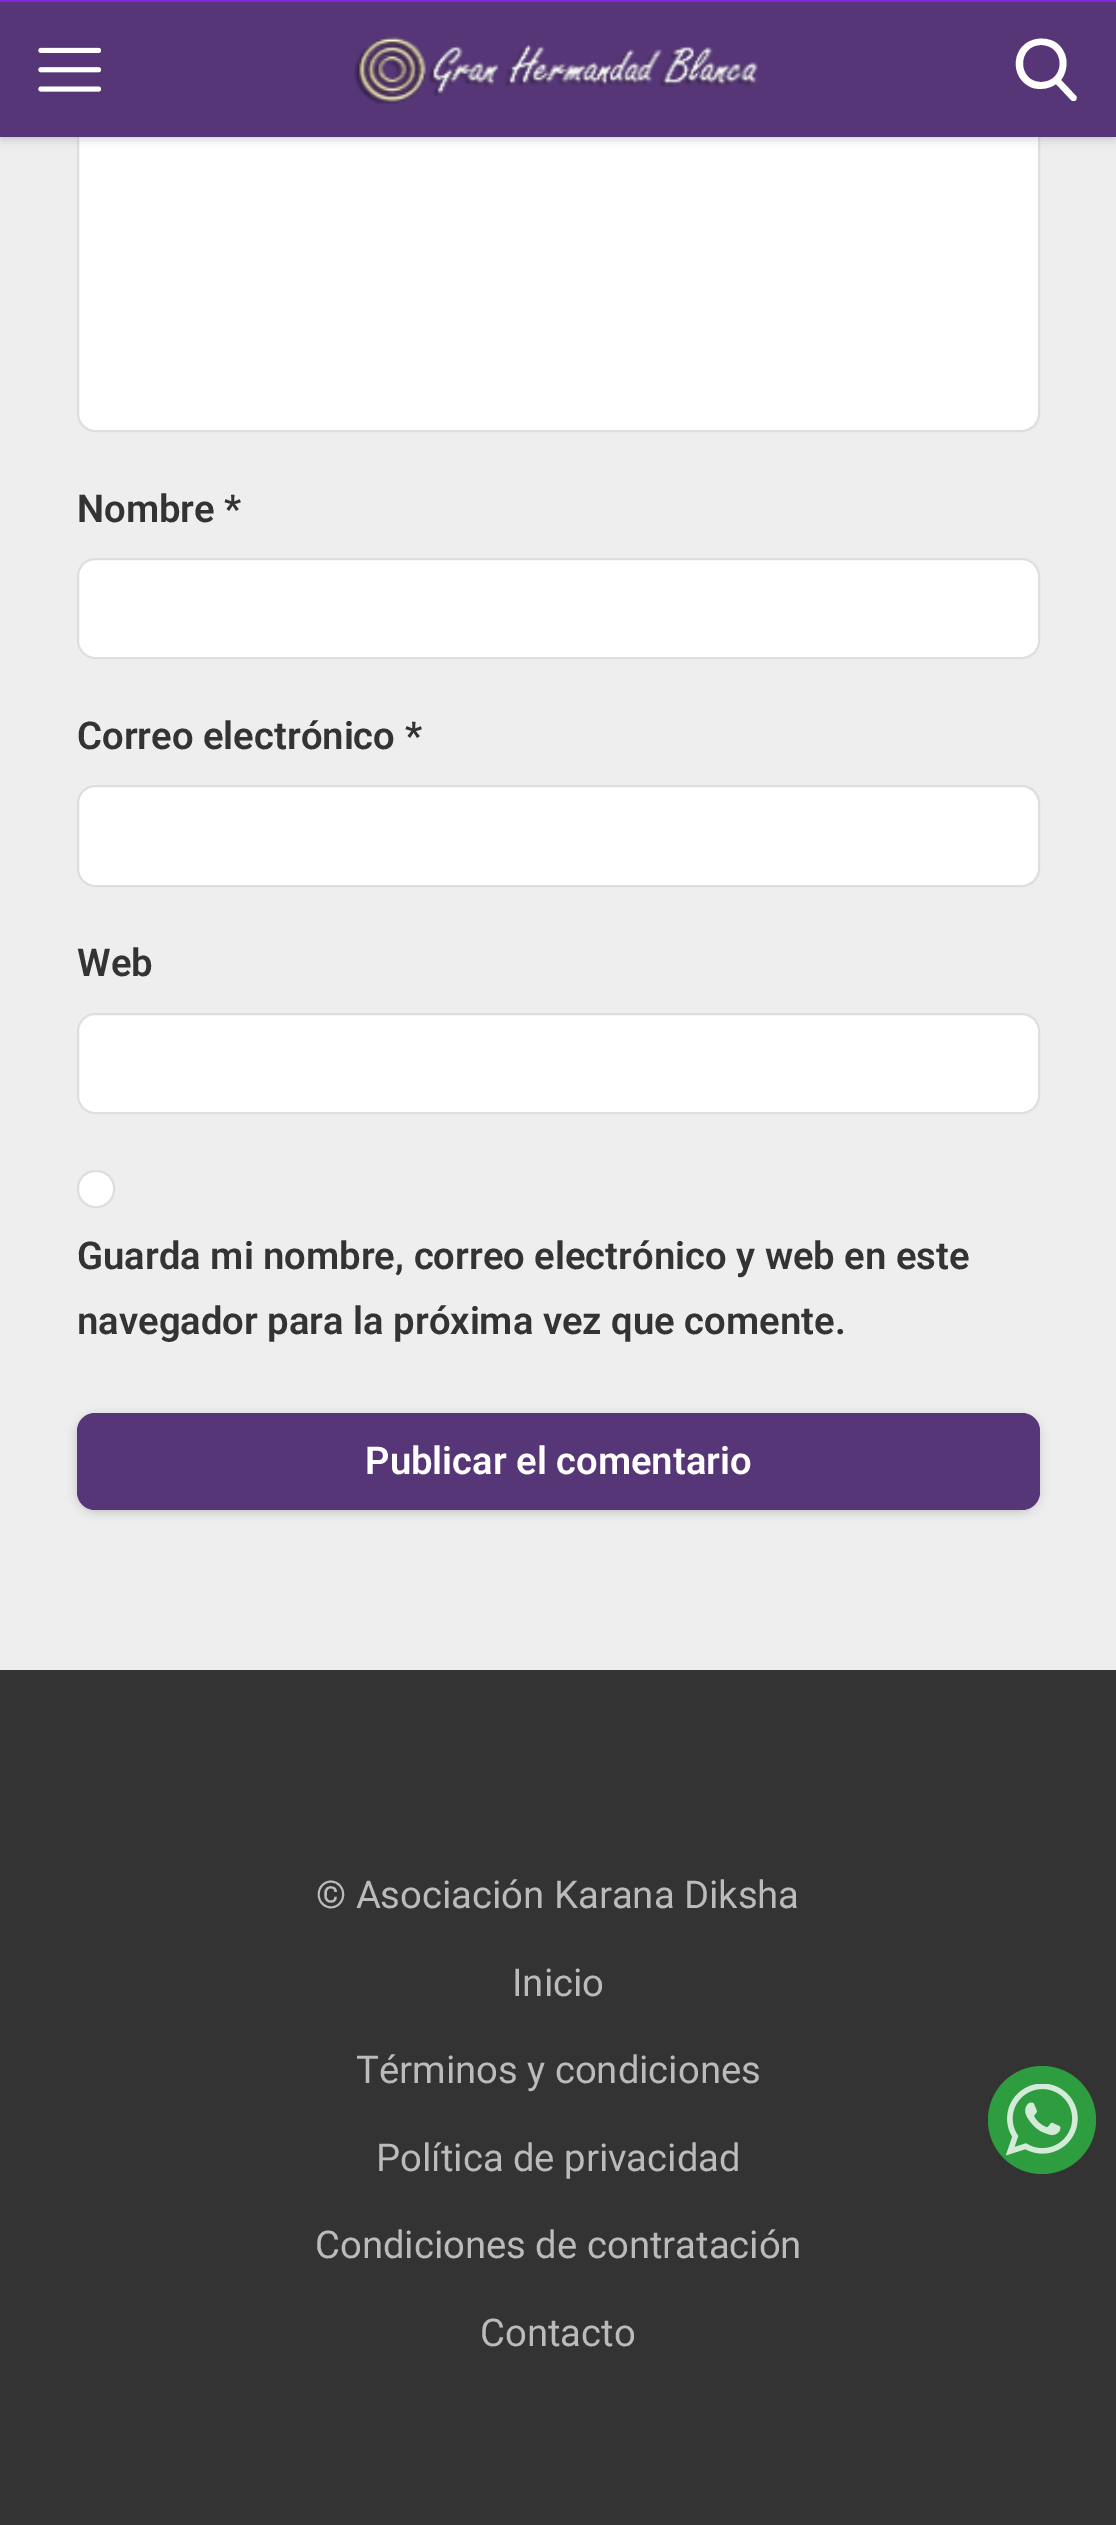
%!PS
<< /PageSize [1116 2525] /PageUsesTransparency true >> setpagedevice
/mt/moveto load def
/li/lineto load def
/ct/curveto load def
/cp/closepath load def
/fl/fill load def
/st/stroke load def
/gs/gsave load def
/gr/grestore load def
/lw/setlinewidth load def
/co { dup -16 bitshift 255 div exch dup -8 bitshift 255 and 255 div exch 255 and 255 div setrgbcolor } def
/fn { [ exch dup neg 0 0 3 -1 roll 0 0 ] selectfont } def
/tx { co fn moveto show } def
/bx { co rectfill } def
/al { dup .setfillconstantalpha .setstrokeconstantalpha } def
/ci { newpath 0 360 arc closepath } def
/rr { 5 dict begin { /r /h /w /y /x } { exch def } forall
  x r add y moveto x w add y 2 copy h add r arct x w add y h add x 1 index r arct
  x y h add x y r arct x y 2 copy exch w add exch r arct closepath end } def
/sh { 12 dict begin { /a /b /q /h /w /y /x } { exch def } forall gsave /was 0 def
  9 -2 -9 { dup b mul 4 div /e exch def 1 sub .425 mul 2.718 exch exp 1 add a .99 .min exch div /now exch def
    1 1 now sub 1 was sub div sub al /was now def
    w h .min e 2 mul add 0 gt { x e sub y e sub w e 2 mul add h e 2 mul add
      q e add b .6 mul add w h .min 2 div e add .min 0 .max rr fill } if } for grestore end } def
/im { 5 dict begin { /h /w /y /x /name } { exch def } forall
  gsave x y translate w h scale
  w h 8 [w 0 0 h 0 0] name (r) file false 3 colorimage grestore end } def
0 .pushpdf14devicefilter
0 2525 translate 1 -1 scale
4 setmiterlimit
0 0 1116 2525 16#EEEEEE bx
16#FFFFFF co
78 24 961 407 17 rr gs fl gr
16#DEDEDE co
2 lw
st
16#000000 co
2 5 1112 132 0 5.5 .25 sh
0 2 1116 135 16#563677 bx
0 0 1116 2 16#8224E3 bx
(media/1.raw) 38 47 63 45 im
(media/2.raw) 354 36 404 68 im
gs
1015 38 63 63 rectclip
16#FFFFFF co
1076 96 mt 1061 80 li 1070 68 1068 50 1055 42 ct 1050 39 1043 38 1037 39 ct 1011 43 1008 79 1033 88 ct 1041 90 1049 89 1056 84 ct 1072 101 li 1075 103 1078 98 1076 96 ct cp 1041 45 mt 1066 45 1066 82 1041 82 ct 1017 82 1017 45 1041 45 ct cp fl
gr
16#FFFFFF co
78 559 961 99 17 rr gs fl gr
16#DEDEDE co
st
16#FFFFFF co
78 786 961 100 17 rr gs fl gr
16#DEDEDE co
st
16#FFFFFF co
78 1014 961 99 17 rr gs fl gr
16#DEDEDE co
st
16#FFFFFF co
78 1171 36 36 17 rr gs fl gr
16#DEDEDE co
st
16#000000 co
79 1418 958 92 16 5.5 .25 sh
16#563677 co
77 1413 963 97 18 rr fl
0 1670 1116 855 16#333333 bx
16#2E9D3F co
1042 2120 54 ci fl
(media/3.raw) 1006 2084 72 72 im
(Nombre *) 77 522 /Roboto-SemiBold 38.25 16#333333 tx
(Correo electrónico *) 77 749 /Roboto-SemiBold 38.25 16#333333 tx
(Web) 77 976 /Roboto-SemiBold 38.25 16#333333 tx
(Guarda mi nombre, correo electrónico y web en este) 77 1269 /Roboto-SemiBold 38.25 16#333333 tx
(navegador para la próxima vez que comente.) 77 1334 /Roboto-SemiBold 38.25 16#333333 tx
(Publicar el comentario) 365 1474 /Roboto-SemiBold 38.25 16#FFFFFF tx
(© Asociación Karana Diksha) 316 1908 /Roboto-Regular 38.25 16#BBBBBB tx
(Inicio) 512 1996 /Roboto-Regular 38.25 16#BBBBBB tx
(Términos y condiciones) 356 2083 /Roboto-Regular 38.25 16#BBBBBB tx
(Política de privacidad) 376 2171 /Roboto-Regular 38.25 16#BBBBBB tx
(Condiciones de contratación) 315 2258 /Roboto-Regular 38.25 16#BBBBBB tx
(Contacto) 480 2346 /Roboto-Regular 38.25 16#BBBBBB tx
.poppdf14devicefilter showpage
